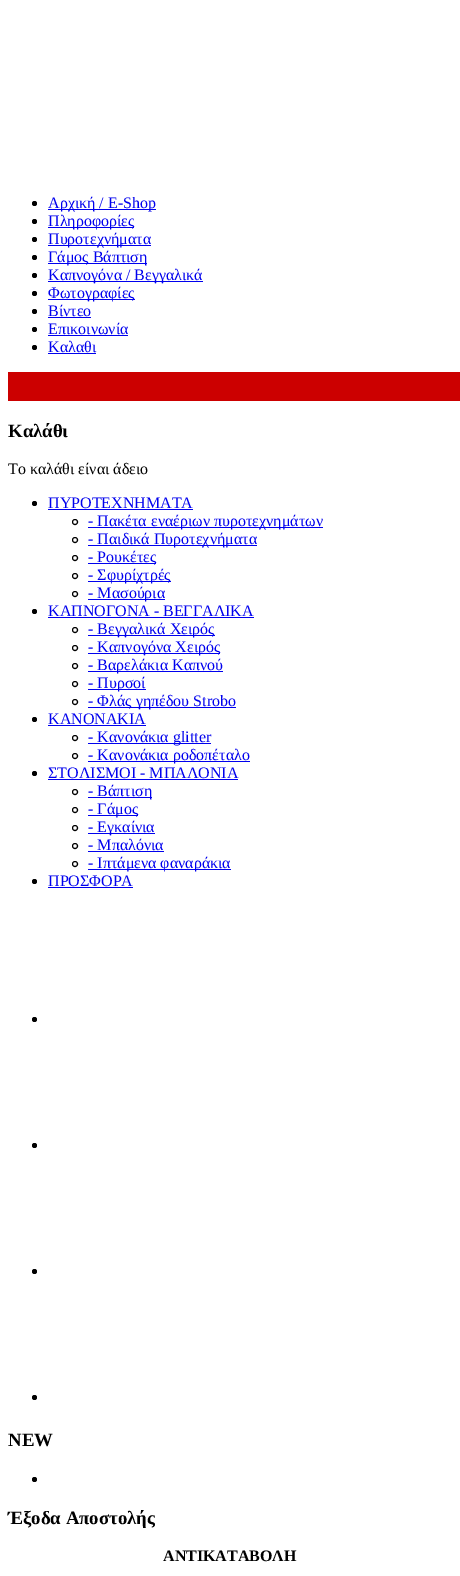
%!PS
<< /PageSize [460 1576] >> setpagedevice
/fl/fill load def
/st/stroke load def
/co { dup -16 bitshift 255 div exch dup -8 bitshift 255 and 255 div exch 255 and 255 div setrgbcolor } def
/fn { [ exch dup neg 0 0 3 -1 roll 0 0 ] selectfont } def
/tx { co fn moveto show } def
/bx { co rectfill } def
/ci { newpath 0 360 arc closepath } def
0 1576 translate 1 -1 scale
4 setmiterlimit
0 0 460 1576 16#FFFFFF bx
16#000000 co
34.5 203.5 2.5 ci fl
48 209 108 1 16#0000EE bx
16#000000 co
34.5 221.5 2.5 ci fl
48 227 86 1 16#0000EE bx
16#000000 co
34.5 239.5 2.5 ci fl
48 245 103 1 16#0000EE bx
16#000000 co
34.5 257.5 2.5 ci fl
48 263 99 1 16#0000EE bx
16#000000 co
34.5 275.5 2.5 ci fl
48 281 155 1 16#0000EE bx
16#000000 co
34.5 293.5 2.5 ci fl
48 299 87 1 16#0000EE bx
16#000000 co
34.5 311.5 2.5 ci fl
48 317 43 1 16#0000EE bx
16#000000 co
34.5 329.5 2.5 ci fl
48 335 80 1 16#0000EE bx
16#000000 co
34.5 347.5 2.5 ci fl
48 353 48 1 16#0000EE bx
8 372 452 29 16#CC0000 bx
16#000000 co
34.5 503.5 2.5 ci fl
48 509 145 1 16#0000EE bx
16#000000 co
75 522 2.5 ci st
88 527 235 1 16#0000EE bx
16#000000 co
75 540 2.5 ci st
88 545 169 1 16#0000EE bx
16#000000 co
75 558 2.5 ci st
88 563 68 1 16#0000EE bx
16#000000 co
75 576 2.5 ci st
88 581 83 1 16#0000EE bx
16#000000 co
75 594 2.5 ci st
88 599 77 1 16#0000EE bx
16#000000 co
34.5 611.5 2.5 ci fl
48 617 206 1 16#0000EE bx
16#000000 co
75 630 2.5 ci st
88 635 127 1 16#0000EE bx
16#000000 co
75 648 2.5 ci st
88 653 132 1 16#0000EE bx
16#000000 co
75 666 2.5 ci st
88 671 135 1 16#0000EE bx
16#000000 co
75 684 2.5 ci st
88 689 58 1 16#0000EE bx
16#000000 co
75 702 2.5 ci st
88 707 148 1 16#0000EE bx
16#000000 co
34.5 719.5 2.5 ci fl
48 725 98 1 16#0000EE bx
16#000000 co
75 738 2.5 ci st
88 743 123 1 16#0000EE bx
16#000000 co
75 756 2.5 ci st
88 761 162 1 16#0000EE bx
16#000000 co
34.5 773.5 2.5 ci fl
48 779 190 1 16#0000EE bx
16#000000 co
75 792 2.5 ci st
88 797 64 1 16#0000EE bx
16#000000 co
75 810 2.5 ci st
88 815 50 1 16#0000EE bx
16#000000 co
75 828 2.5 ci st
88 833 67 1 16#0000EE bx
16#000000 co
75 846 2.5 ci st
88 851 76 1 16#0000EE bx
16#000000 co
75 864 2.5 ci st
88 869 143 1 16#0000EE bx
16#000000 co
34.5 881.5 2.5 ci fl
48 887 85 1 16#0000EE bx
16#000000 co
34.5 1019.5 2.5 ci fl
34.5 1145.5 2.5 ci fl
34.5 1271.5 2.5 ci fl
34.5 1397.5 2.5 ci fl
34.5 1479.5 2.5 ci fl
(Αρχική / E-Shop) 48 208 /LiberationSerif-Regular 16 16#0000EE tx
(Πληροφορίες) 48 226 /LiberationSerif-Regular 16 16#0000EE tx
(Πυροτεχνήματα) 48 244 /LiberationSerif-Regular 16 16#0000EE tx
(Γάμος Βάπτιση) 48 262 /LiberationSerif-Regular 16 16#0000EE tx
(Καπνογόνα / Βεγγαλικά) 48 280 /LiberationSerif-Regular 16 16#0000EE tx
(Φωτογραφίες) 48 298 /LiberationSerif-Regular 16 16#0000EE tx
(Βίντεο) 48 316 /LiberationSerif-Regular 16 16#0000EE tx
(Επικοινωνία) 48 334 /LiberationSerif-Regular 16 16#0000EE tx
(Καλαθι) 48 352 /LiberationSerif-Regular 16 16#0000EE tx
(Καλάθι) 8 437 /LiberationSerif-Bold 18.75 16#000000 tx
(Το καλάθι είναι άδειο) 8 474 /LiberationSerif-Regular 16 16#000000 tx
(ΠΥΡΟΤΕΧΝΗΜΑΤΑ) 48 508 /LiberationSerif-Regular 16 16#0000EE tx
(- Πακέτα εναέριων πυροτεχνημάτων) 88 526 /LiberationSerif-Regular 16 16#0000EE tx
(- Παιδικά Πυροτεχνήματα) 88 544 /LiberationSerif-Regular 16 16#0000EE tx
(- Ρουκέτες) 88 562 /LiberationSerif-Regular 16 16#0000EE tx
(- Σφυρίχτρές) 88 580 /LiberationSerif-Regular 16 16#0000EE tx
(- Μασούρια) 88 598 /LiberationSerif-Regular 16 16#0000EE tx
(ΚΑΠΝΟΓΟΝΑ - ΒΕΓΓΑΛΙΚΑ) 48 616 /LiberationSerif-Regular 16 16#0000EE tx
(- Βεγγαλικά Χειρός) 88 634 /LiberationSerif-Regular 16 16#0000EE tx
(- Καπνογόνα Χειρός) 88 652 /LiberationSerif-Regular 16 16#0000EE tx
(- Βαρελάκια Καπνού) 88 670 /LiberationSerif-Regular 16 16#0000EE tx
(- Πυρσοί) 88 688 /LiberationSerif-Regular 16 16#0000EE tx
(- Φλάς γηπέδου Strobo) 88 706 /LiberationSerif-Regular 16 16#0000EE tx
(ΚΑΝΟΝΑΚΙΑ) 48 724 /LiberationSerif-Regular 16 16#0000EE tx
(- Κανονάκια glitter) 88 742 /LiberationSerif-Regular 16 16#0000EE tx
(- Κανονάκια ροδοπέταλο) 88 760 /LiberationSerif-Regular 16 16#0000EE tx
(ΣΤΟΛΙΣΜΟΙ - ΜΠΑΛΟΝΙΑ) 48 778 /LiberationSerif-Regular 16 16#0000EE tx
(- Βάπτιση) 88 796 /LiberationSerif-Regular 16 16#0000EE tx
(- Γάμος) 88 814 /LiberationSerif-Regular 16 16#0000EE tx
(- Εγκαίνια) 88 832 /LiberationSerif-Regular 16 16#0000EE tx
(- Μπαλόνια) 88 850 /LiberationSerif-Regular 16 16#0000EE tx
(- Ιπτάμενα φαναράκια) 88 868 /LiberationSerif-Regular 16 16#0000EE tx
(ΠΡΟΣΦΟΡA) 48 886 /LiberationSerif-Regular 16 16#0000EE tx
(NEW) 8 1446 /LiberationSerif-Bold 18.75 16#000000 tx
(Έξοδα Αποστολής) 8 1524 /LiberationSerif-Bold 18.75 16#000000 tx
(ΑNTIKATABOΛH) 163 1561 /LiberationSerif-Bold 16 16#000000 tx
showpage
